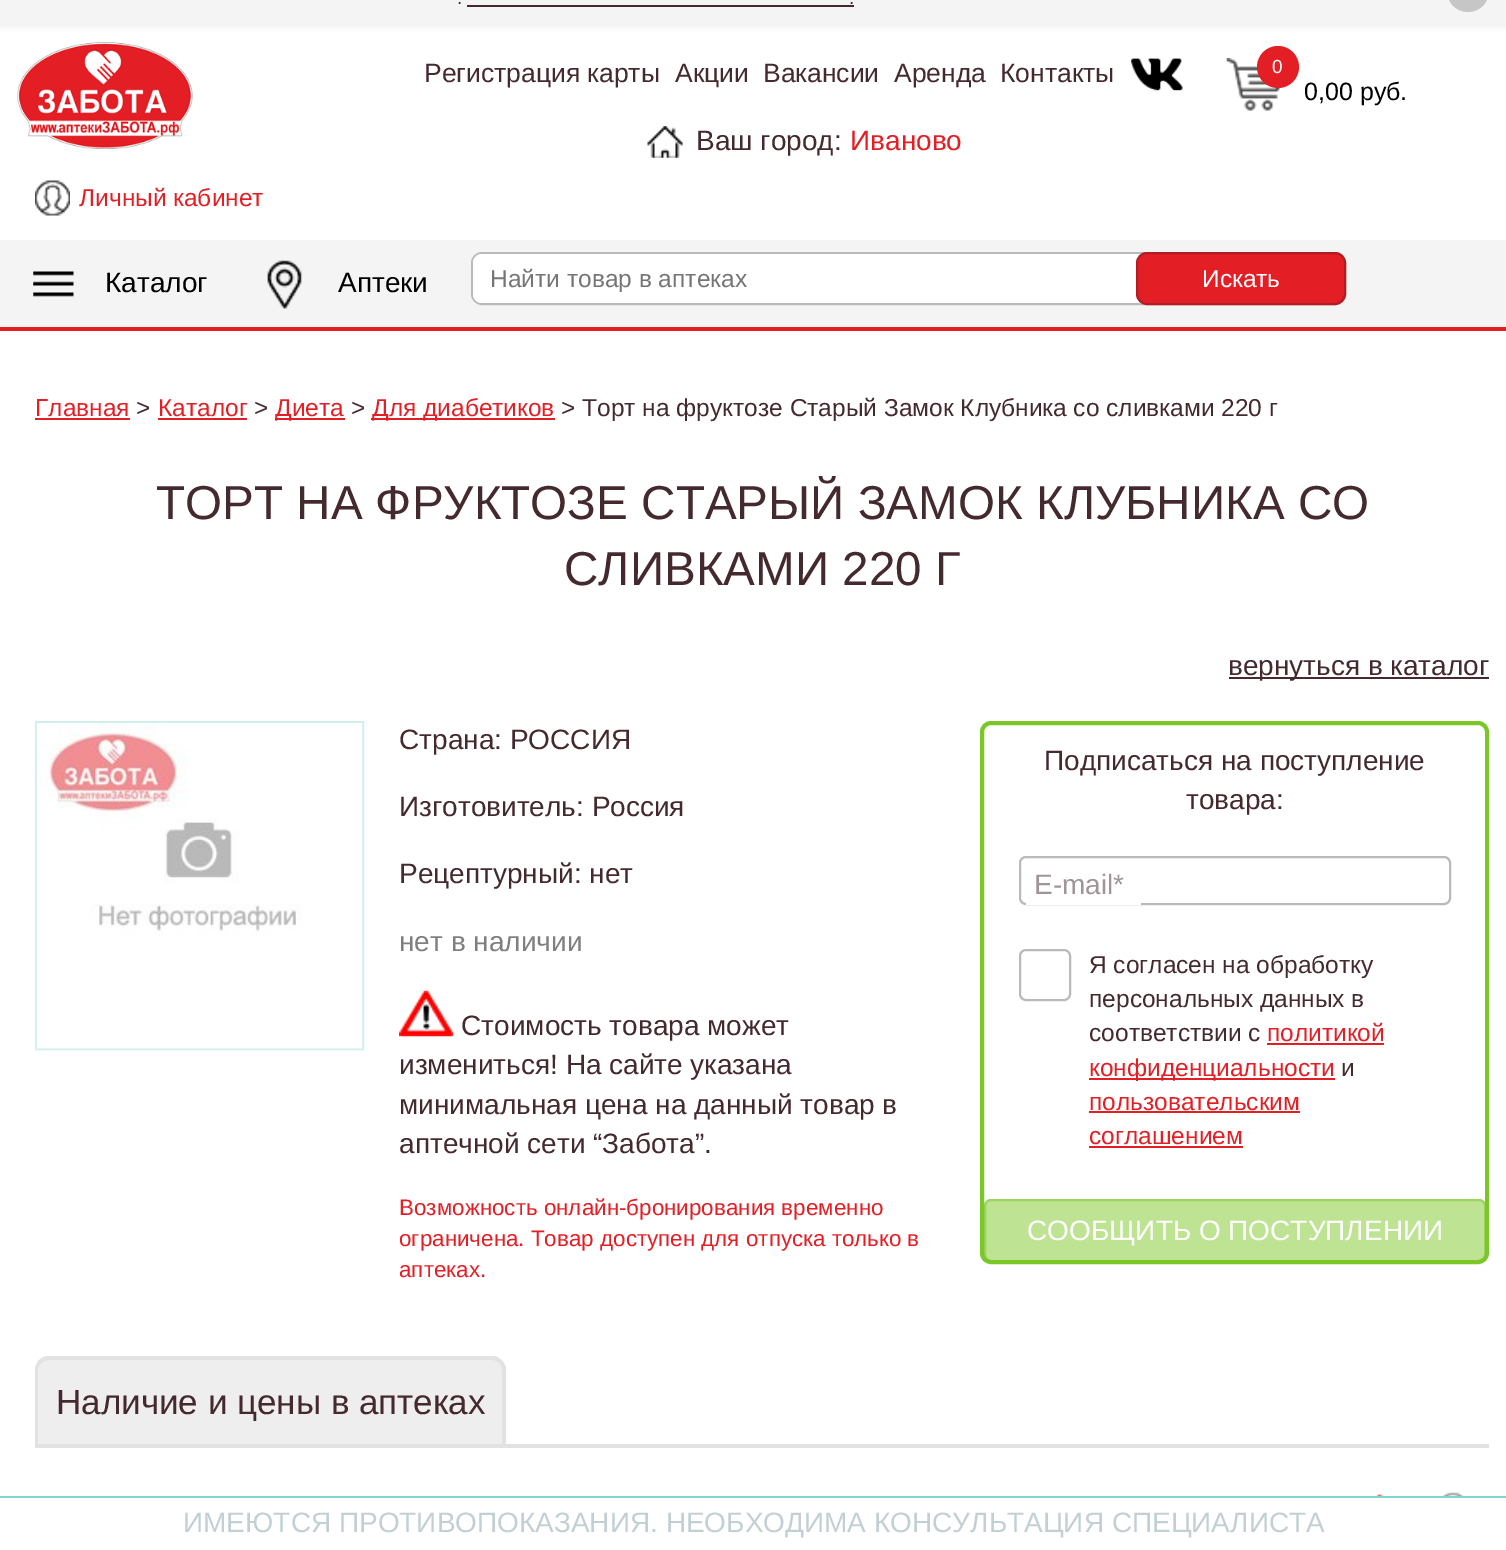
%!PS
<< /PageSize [1506 1550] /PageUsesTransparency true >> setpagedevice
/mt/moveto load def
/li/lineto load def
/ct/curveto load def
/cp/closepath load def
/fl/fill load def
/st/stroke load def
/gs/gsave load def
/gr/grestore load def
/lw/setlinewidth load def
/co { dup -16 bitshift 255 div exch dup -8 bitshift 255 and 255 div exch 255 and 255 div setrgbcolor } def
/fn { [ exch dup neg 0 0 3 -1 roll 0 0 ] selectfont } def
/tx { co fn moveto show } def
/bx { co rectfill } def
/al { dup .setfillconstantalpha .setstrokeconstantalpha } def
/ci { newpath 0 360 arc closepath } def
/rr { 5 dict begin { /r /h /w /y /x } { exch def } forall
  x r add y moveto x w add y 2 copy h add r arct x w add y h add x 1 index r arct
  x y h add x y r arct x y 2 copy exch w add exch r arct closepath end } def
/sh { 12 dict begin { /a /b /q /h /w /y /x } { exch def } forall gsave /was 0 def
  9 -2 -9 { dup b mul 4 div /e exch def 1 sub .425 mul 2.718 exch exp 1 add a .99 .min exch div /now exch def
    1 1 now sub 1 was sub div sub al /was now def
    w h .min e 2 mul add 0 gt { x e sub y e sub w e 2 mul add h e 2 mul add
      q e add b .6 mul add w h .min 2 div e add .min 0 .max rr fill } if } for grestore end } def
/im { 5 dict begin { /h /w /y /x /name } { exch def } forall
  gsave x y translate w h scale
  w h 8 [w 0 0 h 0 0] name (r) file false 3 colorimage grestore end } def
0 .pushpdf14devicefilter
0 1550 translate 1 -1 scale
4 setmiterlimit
0 0 1506 1550 16#FFFFFF bx
16#000000 co
0 -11 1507 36 0 3.5 .1 sh
0 0 1506 25 16#F4F4F4 bx
467 5 387 2 16#44292E bx
16#C6C6C6 co
1447 -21 42 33 21 rr fl
(media/1.raw) 17 42 176 107 im
(media/2.raw) 1226 58 55 53 im
16#E31E25 co
1278 67 21 ci fl
(media/3.raw) 35 180 35 36 im
(media/4.raw) 1131 58 52 33 im
(media/5.raw) 647 126 36 32 im
0 240 1506 87 16#F4F4F4 bx
0 327 1506 4 16#E31E25 bx
(media/6.raw) 33 271 41 26 im
(media/7.raw) 267 260 35 49 im
16#BABABA co
2 lw
472 253 873 51 10 rr st
16#FFFFFF co
473 254 871 49 9 rr fl
16#E31E25 co
1137 253 208 51 10 rr gs fl gr
16#B21D21 co
st
35 418 95 2 16#E31E25 bx
158 418 89 2 16#E31E25 bx
275 418 70 2 16#E31E25 bx
371 418 184 2 16#E31E25 bx
1229 677 260 2 16#44292E bx
16#CEEFED co
36 722 327 327 rectstroke
(media/8.raw) 36 723 327 326 im
(media/9.raw) 399 990 55 47 im
16#7CC728 co
4 lw
982 723 505 539 9 rr st
16#BABABA co
2 lw
1020 857 430 47 6 rr st
1026 903 115 2 16#FFFFFF bx
16#BABABA co
1020 950 50 50 6 rr st
1267 1043 117 2 16#E31E25 bx
1089 1078 246 2 16#E31E25 bx
1089 1111 211 2 16#E31E25 bx
1089 1146 154 2 16#E31E25 bx
0.5 al
16#7CC728 co
984 1199 502 63 7 rr fl
985 1200 500 61 6 rr st
1 al
35 1444 1454 4 16#E2E2E2 bx
16#EEEEEE co
49 1356 mt 492 1356 li 499.5 1356 506 1362.5 506 1370 ct 506 1444 li 35 1444 li 35 1370 li 35 1362.5 41.5 1356 49 1356 ct cp fl
16#E2E2E2 co
49 1356 mt 492 1356 li 499 1356 506 1363 506 1370 ct 506 1444 li 35 1444 li 35 1370 li 35 1363 41 1356 49 1356 ct cp 49 1360 mt 492 1360 li 498 1360 502 1364 502 1370 ct 502 1444 li 38 1444 li 38 1370 li 38 1364 43 1360 49 1360 ct cp eofill
(media/10.raw) 1376 1494 7 2 im
(media/11.raw) 1443 1492 21 4 im
0 1496 1506 2 16#80D7CF bx
(.) 457 4 /LiberationSans-Regular 19 16#44292E tx
(.) 849 4 /LiberationSans-Regular 19 16#44292E tx
(0) 1272 73 /LiberationSans-Regular 19 16#FFFFFF tx
(0,00 руб.) 1304 100 /LiberationSans-Regular 25 16#000000 tx
(Личный кабинет) 79 206 /LiberationSans-Regular 24.5 16#E31E25 tx
(Регистрация карты) 424 82 /LiberationSans-Regular 26.5 16#44292E tx
(Акции) 675 82 /LiberationSans-Regular 26.5 16#44292E tx
(Вакансии) 763 82 /LiberationSans-Regular 26.5 16#44292E tx
(Аренда) 894 82 /LiberationSans-Regular 26.5 16#44292E tx
(Контакты) 1000 82 /LiberationSans-Regular 26.5 16#44292E tx
(Ваш город:) 696 150 /LiberationSans-Regular 28 16#44292E tx
(Иваново) 850 150 /LiberationSans-Regular 28 16#E31E25 tx
(Каталог) 105 292 /LiberationSans-Regular 28 16#000000 tx
(Аптеки) 338 292 /LiberationSans-Regular 28 16#000000 tx
(Найти товар в аптеках) 490 287 /LiberationSans-Regular 24.5 16#757575 tx
(Искать) 1202 287 /LiberationSans-Regular 24.5 16#FFFFFF tx
(Главная) 35 416 /LiberationSans-Regular 24.5 16#E31E25 tx
(>) 136 416 /LiberationSans-Regular 24.5 16#44292E tx
(Каталог) 158 416 /LiberationSans-Regular 24.5 16#E31E25 tx
(>) 254 416 /LiberationSans-Regular 24.5 16#44292E tx
(Диета) 275 416 /LiberationSans-Regular 24.5 16#E31E25 tx
(>) 351 416 /LiberationSans-Regular 24.5 16#44292E tx
(Для диабетиков) 372 416 /LiberationSans-Regular 24.5 16#E31E25 tx
(> Торт на фруктозе Старый Замок Клубника со сливками 220 г) 561 416 /LiberationSans-Regular 24.5 16#44292E tx
(ТОРТ НА ФРУКТОЗЕ СТАРЫЙ ЗАМОК КЛУБНИКА СО) 156 519 /LiberationSans-Regular 47.6 16#44292E tx
(СЛИВКАМИ 220 Г) 564 585 /LiberationSans-Regular 47.6 16#44292E tx
(вернуться в каталог) 1228 675 /LiberationSans-Regular 28 16#44292E tx
(Страна: РОССИЯ) 399 749 /LiberationSans-Regular 28 16#44292E tx
(Изготовитель: Россия) 399 816 /LiberationSans-Regular 28 16#44292E tx
(Рецептурный: нет) 399 883 /LiberationSans-Regular 28 16#44292E tx
(нет в наличии) 399 951 /LiberationSans-Regular 28 16#7F7F7F tx
(Стоимость товара может) 461 1035 /LiberationSans-Regular 28 16#44292E tx
(измениться! На сайте указана) 399 1074 /LiberationSans-Regular 28 16#44292E tx
(минимальная цена на данный товар в) 399 1114 /LiberationSans-Regular 28 16#44292E tx
(аптечной сети “Забота”.) 399 1153 /LiberationSans-Regular 28 16#44292E tx
(Возможность онлайн-бронирования временно) 399 1215 /LiberationSans-Regular 22.4 16#E31E25 tx
(ограничена. Товар доступен для отпуска только в) 399 1246 /LiberationSans-Regular 22.4 16#E31E25 tx
(аптеках.) 399 1277 /LiberationSans-Regular 22.4 16#E31E25 tx
(Подписаться на поступление) 1044 770 /LiberationSans-Regular 28 16#44292E tx
(товара:) 1186 809 /LiberationSans-Regular 28 16#44292E tx
(E-mail*) 1034 894 /LiberationSans-Regular 28 16#A19496 tx
(Я согласен на обработку) 1089 973 /LiberationSans-Regular 24.5 16#44292E tx
(персональных данных в) 1089 1007 /LiberationSans-Regular 24.5 16#44292E tx
(соответствии с) 1089 1041 /LiberationSans-Regular 24.5 16#44292E tx
(политикой) 1267 1041 /LiberationSans-Regular 24.5 16#E31E25 tx
(конфиденциальности) 1089 1076 /LiberationSans-Regular 24.5 16#E31E25 tx
(и) 1341 1076 /LiberationSans-Regular 24.5 16#44292E tx
(пользовательским) 1089 1110 /LiberationSans-Regular 24.5 16#E31E25 tx
(соглашением) 1089 1144 /LiberationSans-Regular 24.5 16#E31E25 tx
(СООБЩИТЬ О ПОСТУПЛЕНИИ) 1027 1240 /LiberationSans-Regular 28 16#FFFFFF tx
(Наличие и цены в аптеках) 56 1414 /LiberationSans-Regular 35 16#44292E tx
(ИМЕЮТСЯ ПРОТИВОПОКАЗАНИЯ. НЕОБХОДИМА КОНСУЛЬТАЦИЯ СПЕЦИАЛИСТА) 183 1532 /LiberationSans-Regular 28 16#C2D0D4 tx
.poppdf14devicefilter showpage
